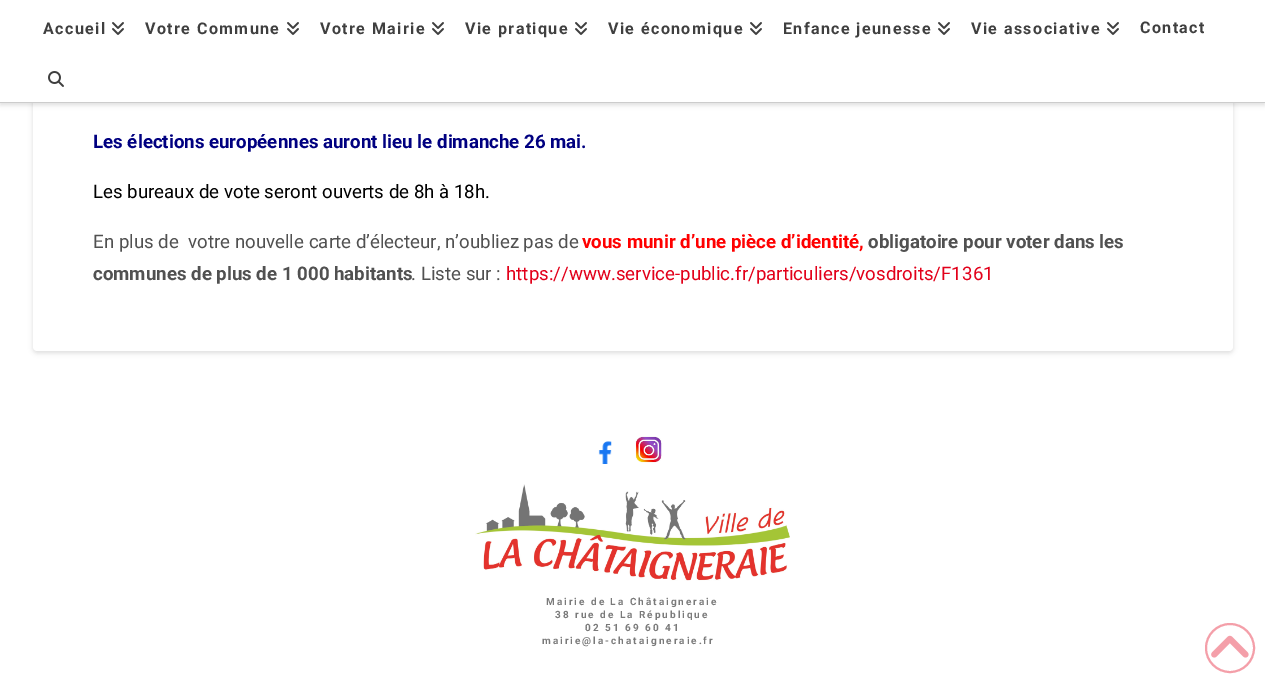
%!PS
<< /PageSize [1265 683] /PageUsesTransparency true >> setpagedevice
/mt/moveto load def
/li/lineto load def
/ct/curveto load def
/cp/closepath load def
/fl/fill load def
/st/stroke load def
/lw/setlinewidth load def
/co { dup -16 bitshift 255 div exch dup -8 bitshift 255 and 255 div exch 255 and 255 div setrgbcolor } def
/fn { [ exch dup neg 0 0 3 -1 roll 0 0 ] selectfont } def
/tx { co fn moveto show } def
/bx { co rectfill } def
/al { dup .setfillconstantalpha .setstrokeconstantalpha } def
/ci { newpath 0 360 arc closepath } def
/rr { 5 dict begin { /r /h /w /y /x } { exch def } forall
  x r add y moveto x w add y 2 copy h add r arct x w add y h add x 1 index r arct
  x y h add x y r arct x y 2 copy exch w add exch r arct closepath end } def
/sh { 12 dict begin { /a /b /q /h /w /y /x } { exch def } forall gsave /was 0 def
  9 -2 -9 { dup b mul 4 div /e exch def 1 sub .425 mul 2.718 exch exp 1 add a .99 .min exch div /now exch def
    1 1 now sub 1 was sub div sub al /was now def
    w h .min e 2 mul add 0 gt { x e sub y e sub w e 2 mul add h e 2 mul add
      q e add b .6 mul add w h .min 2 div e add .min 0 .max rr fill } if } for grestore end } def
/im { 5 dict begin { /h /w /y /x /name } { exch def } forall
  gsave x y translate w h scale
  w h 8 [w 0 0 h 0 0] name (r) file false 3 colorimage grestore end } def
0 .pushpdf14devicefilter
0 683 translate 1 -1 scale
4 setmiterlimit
0 0 1265 683 16#FFFFFF bx
16#000000 co
33 15 1200 338 4 2.5 .13 sh
16#FFFFFF co
33 13 mt 1233 13 li 1233 347 li 1233 349 1231 351 1229 351 ct 37 351 li 35 351 33 349 33 347 ct cp fl
16#000000 co
0 2 1265 103 0 2.5 .13 sh
0 0 1265 102 16#FFFFFF bx
0 102 1265 1 16#CCCCCC bx
(media/1.raw) 112 22 12 13 im
(media/1.raw) 287 22 12 13 im
(media/1.raw) 432 22 12 13 im
(media/1.raw) 575 22 12 13 im
(media/1.raw) 750 22 12 13 im
(media/1.raw) 938 22 12 13 im
(media/1.raw) 1107 22 12 13 im
(media/2.raw) 48 71 16 16 im
(media/3.raw) 598 441 14 23 im
(media/4.raw) 635 436 27 27 im
(media/5.raw) 475 484 315 97 im
16#F49FA9 co
2 lw
1230 648 24 ci st
(media/6.raw) 1211 635 38 23 im
/Roboto-Bold 16 fn
16#3F3F3F co
43 34 mt 1.4 0 (Accueil) ashow
145 34 mt 1.4 0 (Votre Commune) ashow
320 34 mt 1.4 0 (Votre Mairie) ashow
465 34 mt 1.4 0 (Vie pratique) ashow
608 34 mt 1.4 0 (Vie économique) ashow
783 34 mt 1.4 0 (Enfance jeunesse) ashow
971 34 mt 1.4 0 (Vie associative) ashow
1140 33 mt 1.4 0 (Contact) ashow
(Les élections européennes auront lieu le dimanche 26 mai.) 93 148 /Roboto-Bold 18.7 16#000080 tx
(Les bureaux de vote seront ouverts de 8h à 18h.) 93 198 /Roboto-Regular 18.7 16#000000 tx
(En plus de  votre nouvelle carte d’électeur, n’oubliez pas de) 93 248 /Roboto-Regular 18.7 16#515151 tx
(vous munir d’une pièce d’identité,) 582 248 /Roboto-Bold 18.7 16#FF0000 tx
(obligatoire pour voter dans les) 868 248 /Roboto-Bold 18.7 16#515151 tx
(communes de plus de 1 000 habitants) 93 280 /Roboto-Bold 18.7 16#515151 tx
(. Liste sur :) 411 280 /Roboto-Regular 18.7 16#515151 tx
(https://www.service-public.fr/particuliers/vosdroits/F1361) 506 280 /Roboto-Regular 18.7 16#E2001A tx
/Roboto-Bold 10 fn
16#7A7A7A co
546 605 mt 2 0 (Mairie de La Châtaigneraie) ashow
555 618 mt 2 0 (38 rue de La République) ashow
585 631 mt 2 0 (02 51 69 60 41) ashow
542 644 mt 2 0 (mairie@la-chataigneraie.fr) ashow
.poppdf14devicefilter showpage
